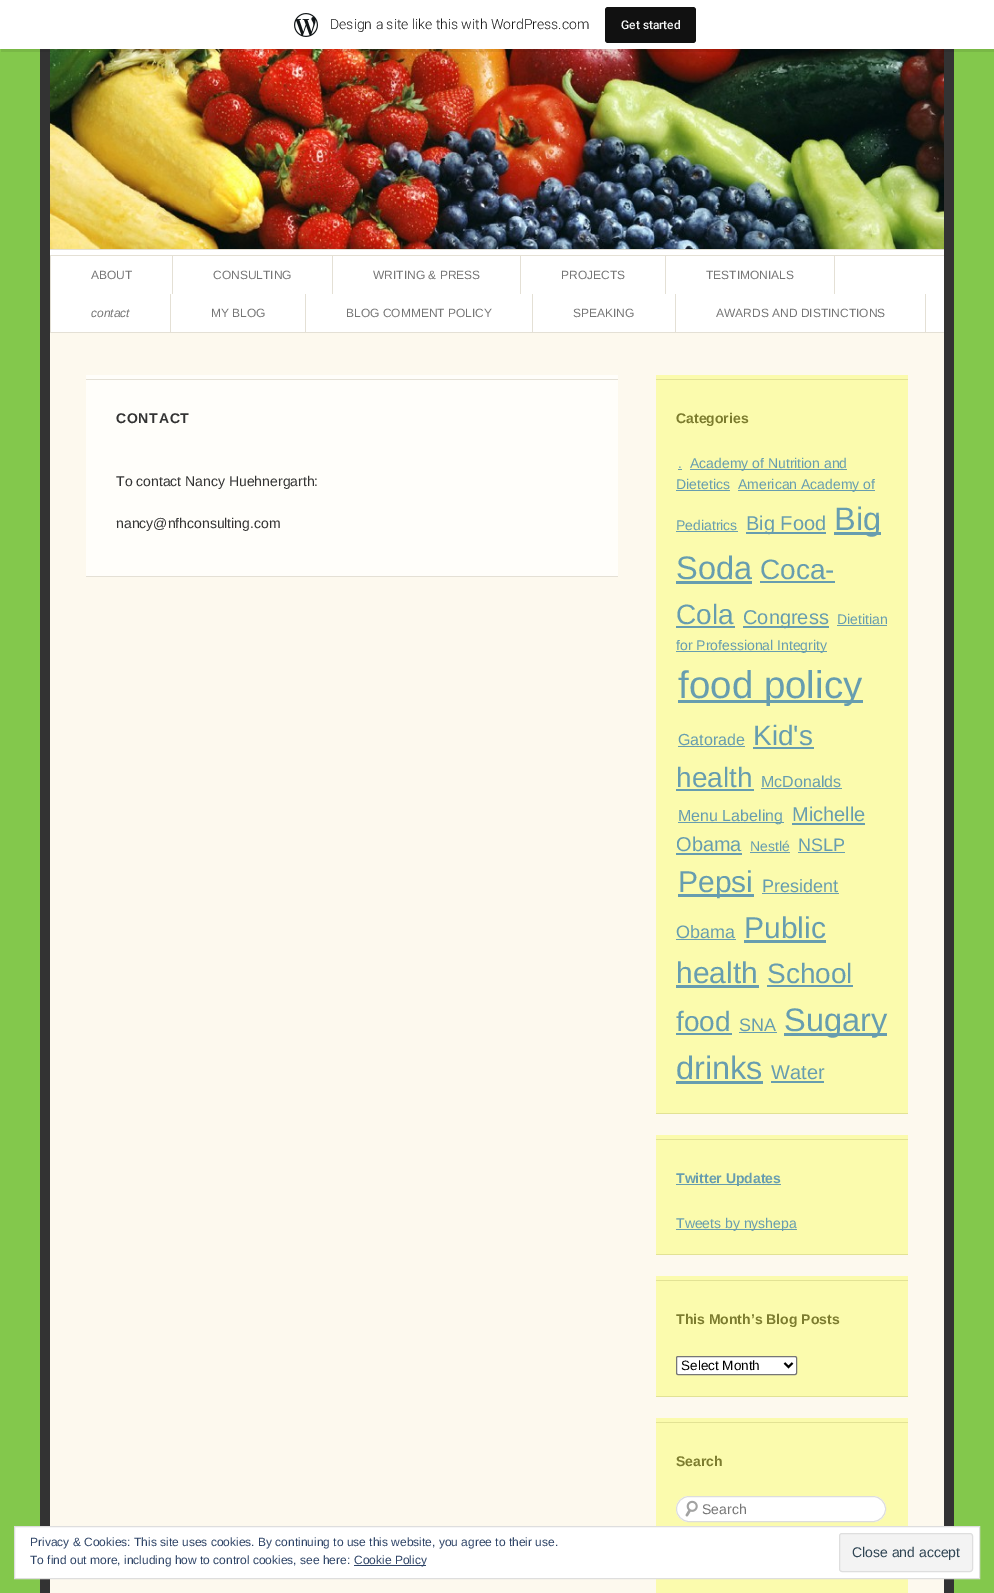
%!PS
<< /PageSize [994 1593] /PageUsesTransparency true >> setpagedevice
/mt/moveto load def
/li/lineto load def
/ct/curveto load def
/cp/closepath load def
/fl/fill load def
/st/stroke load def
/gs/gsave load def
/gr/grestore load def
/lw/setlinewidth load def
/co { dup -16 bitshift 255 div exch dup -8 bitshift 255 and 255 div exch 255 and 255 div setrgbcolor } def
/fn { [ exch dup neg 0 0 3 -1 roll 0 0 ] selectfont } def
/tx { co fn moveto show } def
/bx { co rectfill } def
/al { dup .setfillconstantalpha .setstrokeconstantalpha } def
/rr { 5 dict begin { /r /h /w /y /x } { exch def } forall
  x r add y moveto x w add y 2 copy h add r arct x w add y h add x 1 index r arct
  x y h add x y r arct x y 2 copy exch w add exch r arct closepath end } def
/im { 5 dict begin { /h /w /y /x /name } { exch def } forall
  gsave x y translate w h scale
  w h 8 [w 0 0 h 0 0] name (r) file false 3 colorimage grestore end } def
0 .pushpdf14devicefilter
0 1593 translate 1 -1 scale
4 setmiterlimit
0 0 994 1593 16#83C84C bx
40 49 914 1544 16#333333 bx
(media/2.raw) 50 49 894 200 im
0.08 al
16#000000 co
1 49 mt 1 52 li 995 52 li 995 3 li 994 3 li 994 49 li cp fl
1 al
0 0 994 49 16#FFFFFF bx
(media/1.raw) 294 13 24 24 im
16#111111 co
605 7 91 36 3 rr fl
50 250 894 82 16#FFFFFF bx
50 249 894 1 16#E4E0D5 bx
50 255 894 1 16#E4E0D5 bx
50 256 1 76 16#E4E0D5 bx
172 256 1 38 16#E4E0D5 bx
332 256 1 38 16#E4E0D5 bx
520 256 1 38 16#E4E0D5 bx
665 256 1 38 16#E4E0D5 bx
834 256 1 38 16#E4E0D5 bx
170 294 1 38 16#E4E0D5 bx
305 294 1 38 16#E4E0D5 bx
532 294 1 38 16#E4E0D5 bx
675 294 1 38 16#E4E0D5 bx
925 294 1 38 16#E4E0D5 bx
16#FDF9EE co
50 333 mt 944 333 li 944 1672 li 944 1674 942 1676 939 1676 ct 55 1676 li 52 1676 50 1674 50 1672 ct cp fl
50 332 894 1 16#E4E0D5 bx
86 375 532 201 16#FFFEFA bx
86 576 532 1 16#E4E0D5 bx
86 379 532 1 16#E4E0D5 bx
656 375 252 738 16#FBFBAD bx
656 1113 252 1 16#E2E294 bx
656 379 252 1 16#E2E294 bx
678 469 4 1 16#679DAF bx
690 469 157 1 16#679DAF bx
676 490 54 1 16#679DAF bx
738 490 137 1 16#679DAF bx
676 531 62 1 16#679DAF bx
746 532 80 2 16#679DAF bx
834 532 47 3 16#679DAF bx
676 581 76 3 16#679DAF bx
760 581 75 2 16#679DAF bx
676 626 59 2 16#679DAF bx
743 626 86 2 16#679DAF bx
837 625 50 1 16#679DAF bx
676 651 151 1 16#679DAF bx
678 700 185 3 16#679DAF bx
678 746 67 1 16#679DAF bx
753 747 61 2 16#679DAF bx
676 789 78 2 16#679DAF bx
761 788 81 1 16#679DAF bx
678 822 106 1 16#679DAF bx
792 823 73 2 16#679DAF bx
676 853 66 2 16#679DAF bx
750 852 40 1 16#679DAF bx
798 852 47 1 16#679DAF bx
678 894 76 3 16#679DAF bx
762 893 77 1 16#679DAF bx
676 939 60 1 16#679DAF bx
744 940 82 3 16#679DAF bx
676 985 83 3 16#679DAF bx
767 985 86 2 16#679DAF bx
676 1033 56 2 16#679DAF bx
739 1032 38 1 16#679DAF bx
784 1033 103 3 16#679DAF bx
676 1081 87 3 16#679DAF bx
771 1081 53 2 16#679DAF bx
656 1135 252 119 16#FBFBAD bx
656 1254 252 1 16#E2E294 bx
656 1139 252 1 16#E2E294 bx
676 1184 105 1 16#679DAF bx
676 1229 121 1 16#679DAF bx
656 1276 252 120 16#FBFBAD bx
656 1396 252 1 16#E2E294 bx
656 1280 252 1 16#E2E294 bx
16#FFFFFF co
676.5 1356.5 120 18 1.5 rr gs fl gr
16#767676 co
st
16#000000 co
2 lw
784.5 1363 mt 788.5 1367 li 792.5 1363 li st
656 1418 252 108 16#FBFBAD bx
656 1422 252 1 16#E2E294 bx
16#FFFFFF co
676 1496 210 26 13 rr fl
(media/3.raw) 685 1500 13 17 im
16#DDDDDD co
1 lw
676.5 1496.5 209 25 12.5 rr st
656 1579 252 14 16#FBFBAD bx
16#FFFFFF co
14.5 1526.5 mt 979.5 1526.5 li 979.5 1578.5 li 14.5 1578.5 li cp gs fl gr
16#DEDEDE co
st
354 1565 72 1 16#2E4467 bx
16#F3F3F3 co
839.5 1533.5 133 38 2.5 rr gs fl gr
16#DEDEDE co
st
(Design a site like this with WordPress.com) 330 29 /Roboto-Light 14 16#171717 tx
(Get started) 621 29 /Roboto-Medium 12 16#F6F7F7 tx
(ABOUT) 91 279 /LiberationSans-Regular 12 16#757575 tx
(CONSULTING) 213 279 /LiberationSans-Regular 12 16#757575 tx
(WRITING & PRESS) 373 279 /LiberationSans-Regular 12 16#757575 tx
(PROJECTS) 561 279 /LiberationSans-Regular 12 16#757575 tx
(TESTIMONIALS) 706 279 /LiberationSans-Regular 12 16#757575 tx
(contact) 91 317 /LiberationSans-Italic 12 16#757575 tx
(MY BLOG) 211 317 /LiberationSans-Regular 12 16#757575 tx
(BLOG COMMENT POLICY) 346 317 /LiberationSans-Regular 12 16#757575 tx
(SPEAKING) 573 317 /LiberationSans-Regular 12 16#757575 tx
(AWARDS AND DISTINCTIONS) 716 317 /LiberationSans-Regular 12 16#757575 tx
/LiberationSans-Bold 14 fn
16#333333 co
116 423 mt .75 0 (CONTACT) ashow
(To contact Nancy Huehnergarth:) 116 486 /LiberationSans-Regular 14 16#333333 tx
(nancy@nfhconsulting.com) 116 528 /LiberationSans-Regular 14 16#333333 tx
(Categories) 676 423 /LiberationSans-Bold 14 16#7C7C2E tx
(.) 678 468 /LiberationSans-Regular 14 16#679DAF tx
(Academy of Nutrition and) 690 468 /LiberationSans-Regular 14 16#679DAF tx
(Dietetics) 676 489 /LiberationSans-Regular 14 16#679DAF tx
(American Academy of) 738 489 /LiberationSans-Regular 14 16#679DAF tx
(Pediatrics) 676 530 /LiberationSans-Regular 14 16#679DAF tx
(Big Food) 746 530 /LiberationSans-Regular 20 16#679DAF tx
(Big) 834 530 /LiberationSans-Regular 32.5 16#679DAF tx
(Soda) 676 579 /LiberationSans-Regular 32.5 16#679DAF tx
(Coca-) 760 579 /LiberationSans-Regular 28 16#679DAF tx
(Cola) 676 624 /LiberationSans-Regular 28 16#679DAF tx
(Congress) 743 624 /LiberationSans-Regular 20 16#679DAF tx
(Dietitian) 837 624 /LiberationSans-Regular 14 16#679DAF tx
(for Professional Integrity) 676 650 /LiberationSans-Regular 14 16#679DAF tx
(food policy) 678 698 /LiberationSans-Regular 38.5 16#679DAF tx
(Gatorade) 678 745 /LiberationSans-Regular 16 16#679DAF tx
(Kid's) 753 745 /LiberationSans-Regular 28 16#679DAF tx
(health) 676 787 /LiberationSans-Regular 28 16#679DAF tx
(McDonalds) 761 787 /LiberationSans-Regular 16 16#679DAF tx
(Menu Labeling) 678 821 /LiberationSans-Regular 16 16#679DAF tx
(Michelle) 792 821 /LiberationSans-Regular 20 16#679DAF tx
(Obama) 676 851 /LiberationSans-Regular 20 16#679DAF tx
(Nestlé) 750 851 /LiberationSans-Regular 14 16#679DAF tx
(NSLP) 798 851 /LiberationSans-Regular 18 16#679DAF tx
(Pepsi) 678 892 /LiberationSans-Regular 30 16#679DAF tx
(President) 762 892 /LiberationSans-Regular 18 16#679DAF tx
(Obama) 676 938 /LiberationSans-Regular 18 16#679DAF tx
(Public) 744 938 /LiberationSans-Regular 30 16#679DAF tx
(health) 676 983 /LiberationSans-Regular 30 16#679DAF tx
(School) 767 983 /LiberationSans-Regular 28 16#679DAF tx
(food) 676 1031 /LiberationSans-Regular 28 16#679DAF tx
(SNA) 739 1031 /LiberationSans-Regular 18 16#679DAF tx
(Sugary) 784 1031 /LiberationSans-Regular 32.5 16#679DAF tx
(drinks) 676 1079 /LiberationSans-Regular 32.5 16#679DAF tx
(Water) 771 1079 /LiberationSans-Regular 20 16#679DAF tx
(Twitter Updates) 676 1183 /LiberationSans-Bold 14 16#679DAF tx
(Tweets by nyshepa) 676 1228 /LiberationSans-Regular 14 16#679DAF tx
(This Month’s Blog Posts) 676 1324 /LiberationSans-Bold 14 16#7C7C2E tx
(Select Month) 681 1370 /LiberationSans-Regular 13.5 16#000000 tx
(Search) 676 1466 /LiberationSans-Bold 14 16#7C7C2E tx
(Search) 702 1514 /LiberationSans-Regular 14 16#757575 tx
(Privacy & Cookies: This site uses cookies. By continuing to use this website, you agree to their use.) 30 1546 /LiberationSans-Regular 12 16#2E4467 tx
(To find out more, including how to control cookies, see here:) 30 1564 /LiberationSans-Regular 12 16#2E4467 tx
(Cookie Policy) 354 1564 /LiberationSans-Regular 12 16#2E4467 tx
(Close and accept) 852 1557 /LiberationSans-Regular 14 16#2E4453 tx
.poppdf14devicefilter showpage
